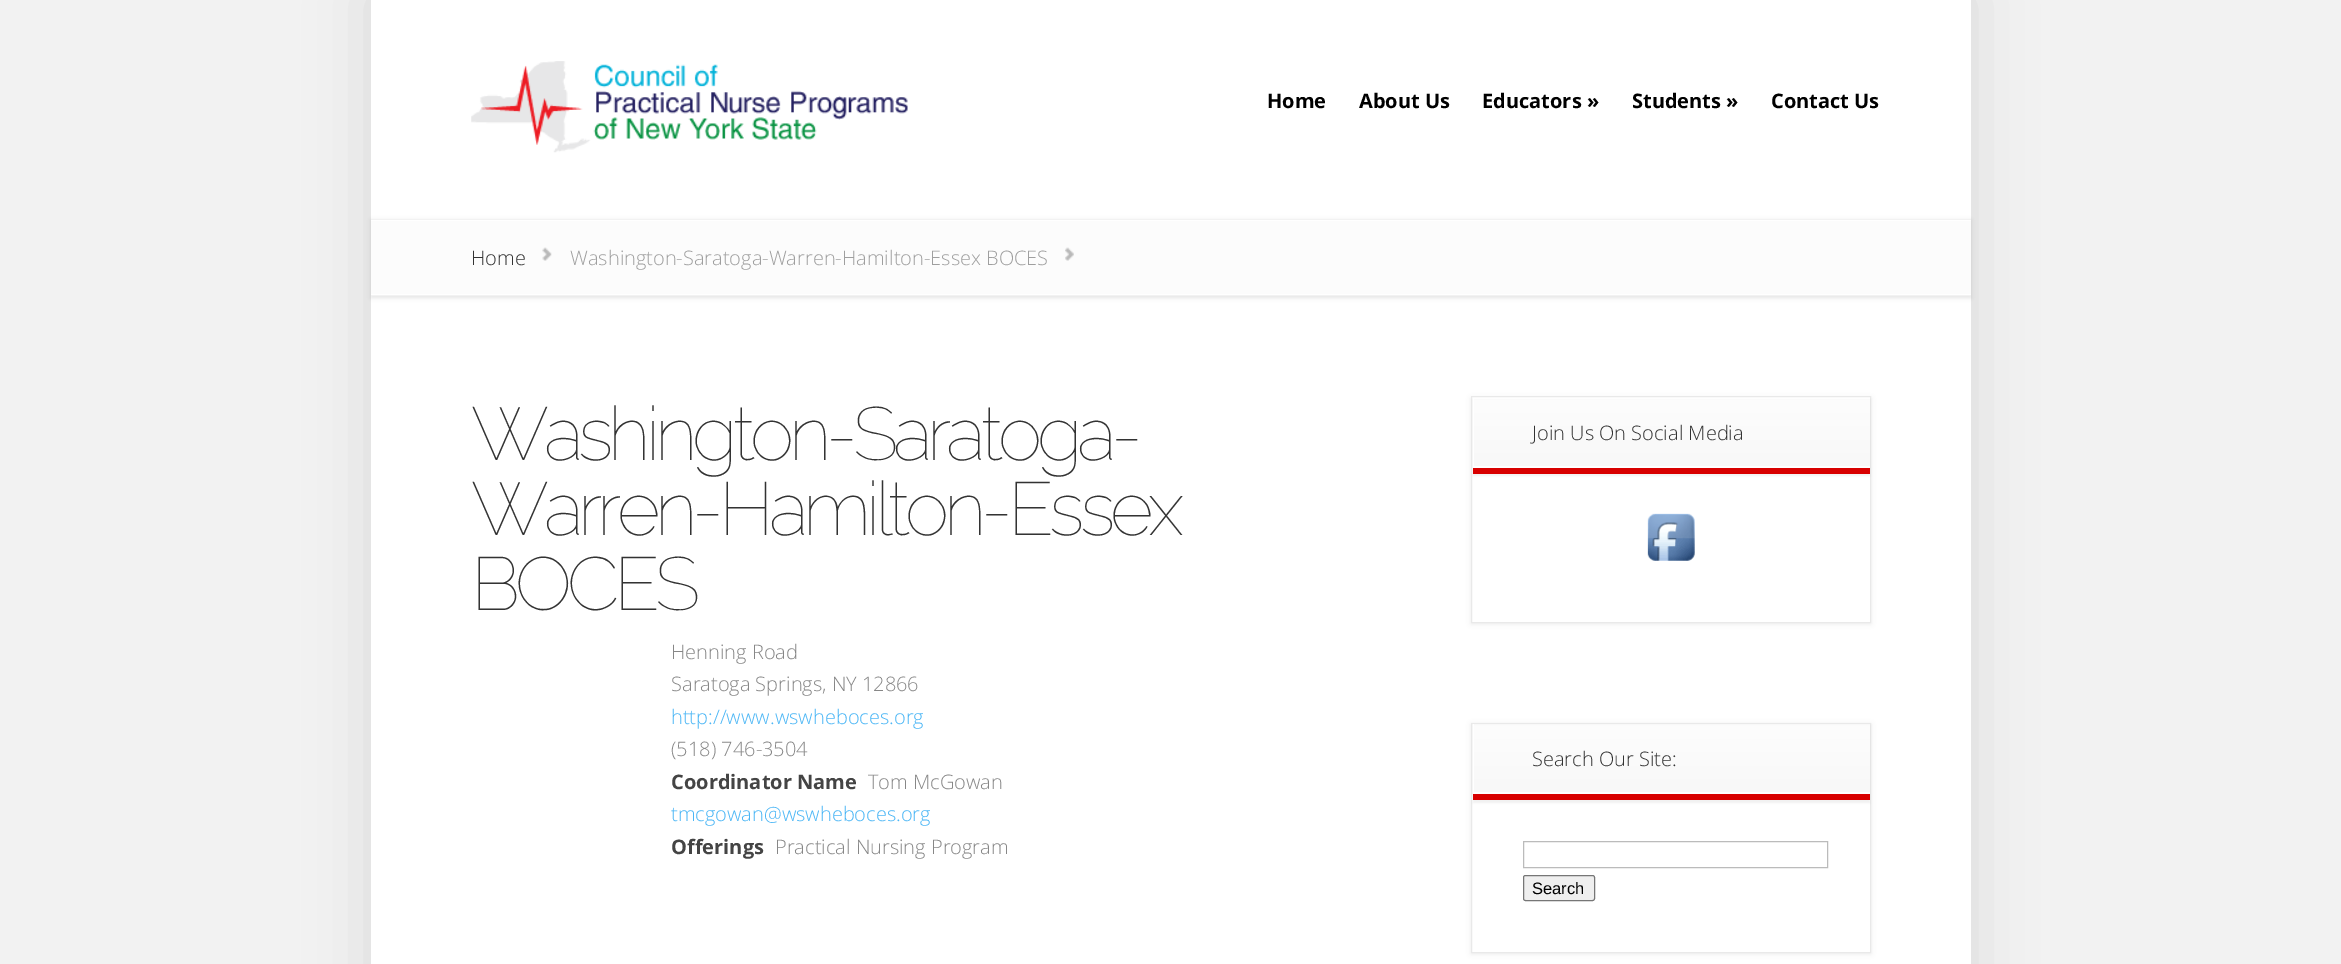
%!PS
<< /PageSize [2341 964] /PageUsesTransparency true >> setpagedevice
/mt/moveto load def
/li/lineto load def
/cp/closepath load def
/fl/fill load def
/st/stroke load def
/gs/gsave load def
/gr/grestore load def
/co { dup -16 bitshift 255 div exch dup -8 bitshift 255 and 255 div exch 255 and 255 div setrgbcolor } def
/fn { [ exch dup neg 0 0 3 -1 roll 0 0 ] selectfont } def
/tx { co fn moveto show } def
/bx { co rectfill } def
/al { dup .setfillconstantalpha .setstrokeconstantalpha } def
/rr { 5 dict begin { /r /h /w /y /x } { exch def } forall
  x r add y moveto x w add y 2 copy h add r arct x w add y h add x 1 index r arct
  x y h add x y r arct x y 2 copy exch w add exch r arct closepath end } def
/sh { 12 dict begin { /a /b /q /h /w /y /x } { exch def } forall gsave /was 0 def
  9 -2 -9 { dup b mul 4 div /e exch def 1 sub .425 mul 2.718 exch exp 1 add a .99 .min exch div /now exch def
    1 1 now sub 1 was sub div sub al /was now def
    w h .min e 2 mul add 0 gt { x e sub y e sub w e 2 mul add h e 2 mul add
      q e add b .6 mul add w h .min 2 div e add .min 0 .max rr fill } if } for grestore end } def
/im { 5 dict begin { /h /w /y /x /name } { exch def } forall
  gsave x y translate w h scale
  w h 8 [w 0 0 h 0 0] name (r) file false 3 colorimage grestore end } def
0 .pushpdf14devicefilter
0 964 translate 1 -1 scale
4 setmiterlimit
0 0 2341 964 16#F2F2F2 bx
16#000000 co
371 -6 1600 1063 0 31 .1 sh
371 0 1600 964 16#FFFFFF bx
(media/1.raw) 471 61 437 92 im
16#000000 co
371 220 1600 78 0 2 .1 sh
371 221 1600 73 16#FCFCFC bx
371 294 1600 1 16#FFFFFF bx
371 220 1600 1 16#FFFFFF bx
371 219 1600 1 16#F2F2F2 bx
371 295 1600 1 16#F2F2F2 bx
(media/2.raw) 542 247 10 14 im
(media/3.raw) 1065 247 9 14 im
gs
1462 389 mt 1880 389 li 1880 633 li 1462 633 li cp 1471 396 mt 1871 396 li 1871 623 li 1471 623 li cp eoclip newpath
16#000000 co
1471 398 400 226 0 2.5 .07 sh
gr
16#E9E9E9 co
1471.5 396.5 399 226 rectstroke
16#000000 co
1473 400 397 76 0 1 .05 sh
gs 1474 400 mt 1870 400 li 1870 466 li 1474 466 li cp clip newpath
<< /ShadingType 2 /ColorSpace /DeviceRGB /Coords [1671 398 1671 468] /Extend [true true] /Function << /FunctionType 2 /Domain [0 1] /C0 [.992 .992 .992] /C1 [.973 .973 .973] /N 1 >> >> shfill gr
gs
1473 398 397 70 rectclip
16#FFFFFF co
1349 274 mt 1994 274 li 1994 591 li 1349 591 li cp 1474 396 mt 1871 396 li 1871 466 li 1474 466 li cp eofill
gr
1473 468 397 6 16#D80000 bx
(media/4.raw) 1647 513 48 48 im
gs
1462 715 mt 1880 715 li 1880 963 li 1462 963 li cp 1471 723 mt 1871 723 li 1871 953 li 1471 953 li cp eoclip newpath
16#000000 co
1471 724 400 230 0 2.5 .07 sh
gr
16#E9E9E9 co
1471.5 723.5 399 229 rectstroke
16#000000 co
1473 726 397 77 0 1 .05 sh
gs 1474 726 mt 1870 726 li 1870 792 li 1474 792 li cp clip newpath
<< /ShadingType 2 /ColorSpace /DeviceRGB /Coords [1671 724 1671 794] /Extend [true true] /Function << /FunctionType 2 /Domain [0 1] /C0 [.992 .992 .992] /C1 [.973 .973 .973] /N 1 >> >> shfill gr
gs
1473 724 397 70 rectclip
16#FFFFFF co
1349 600 mt 1994 600 li 1994 918 li 1349 918 li cp 1474 722 mt 1871 722 li 1871 792 li 1474 792 li cp eofill
gr
1473 794 397 6 16#D80000 bx
16#BBBBBB co
1523.5 841.5 304 26 rectstroke
16#EFEFEF co
1523.5 875.5 71 25 2 rr gs fl gr
16#767676 co
st
(Home) 1267 108 /OpenSans-Bold 20 16#000000 tx
(About Us) 1359 108 /OpenSans-Bold 20 16#000000 tx
(Educators ») 1482 108 /OpenSans-Bold 20 16#000000 tx
(Students ») 1632 108 /OpenSans-Bold 20 16#000000 tx
(Contact Us) 1771 108 /OpenSans-Bold 20 16#000000 tx
(Home) 471 265 /OpenSans-Light 20 16#333333 tx
(Washington-Saratoga-Warren-Hamilton-Essex BOCES) 570 265 /OpenSans-Light 20 16#9F9F9F tx
/Raleway-Thin 75 fn
16#333333 co
471 460 mt -5 0 (Washington-Saratoga-) ashow
471 535 mt -5 0 (Warren-Hamilton-Essex) ashow
471 610 mt -5 0 (BOCES) ashow
(Henning Road) 671 659 /OpenSans-Light 20 16#878787 tx
(Saratoga Springs, NY 12866) 671 691 /OpenSans-Light 20 16#878787 tx
(http://www.wswheboces.org) 671 724 /OpenSans-Light 20 16#4BB6F5 tx
(\(518\) 746-3504) 671 756 /OpenSans-Light 20 16#878787 tx
(Coordinator Name) 671 789 /OpenSans-Bold 20 16#444444 tx
(Tom McGowan) 868 789 /OpenSans-Light 20 16#878787 tx
(tmcgowan@wswheboces.org) 671 821 /OpenSans-Light 20 16#4BB6F5 tx
(Offerings) 671 854 /OpenSans-Bold 20 16#444444 tx
(Practical Nursing Program) 775 854 /OpenSans-Light 20 16#878787 tx
(Join Us On Social Media) 1532 440 /OpenSans-Light 20 16#333333 tx
(Search Our Site:) 1532 766 /OpenSans-Light 20 16#333333 tx
(Search) 1532 894 /LiberationSans-Regular 16.5 16#000000 tx
.poppdf14devicefilter showpage
